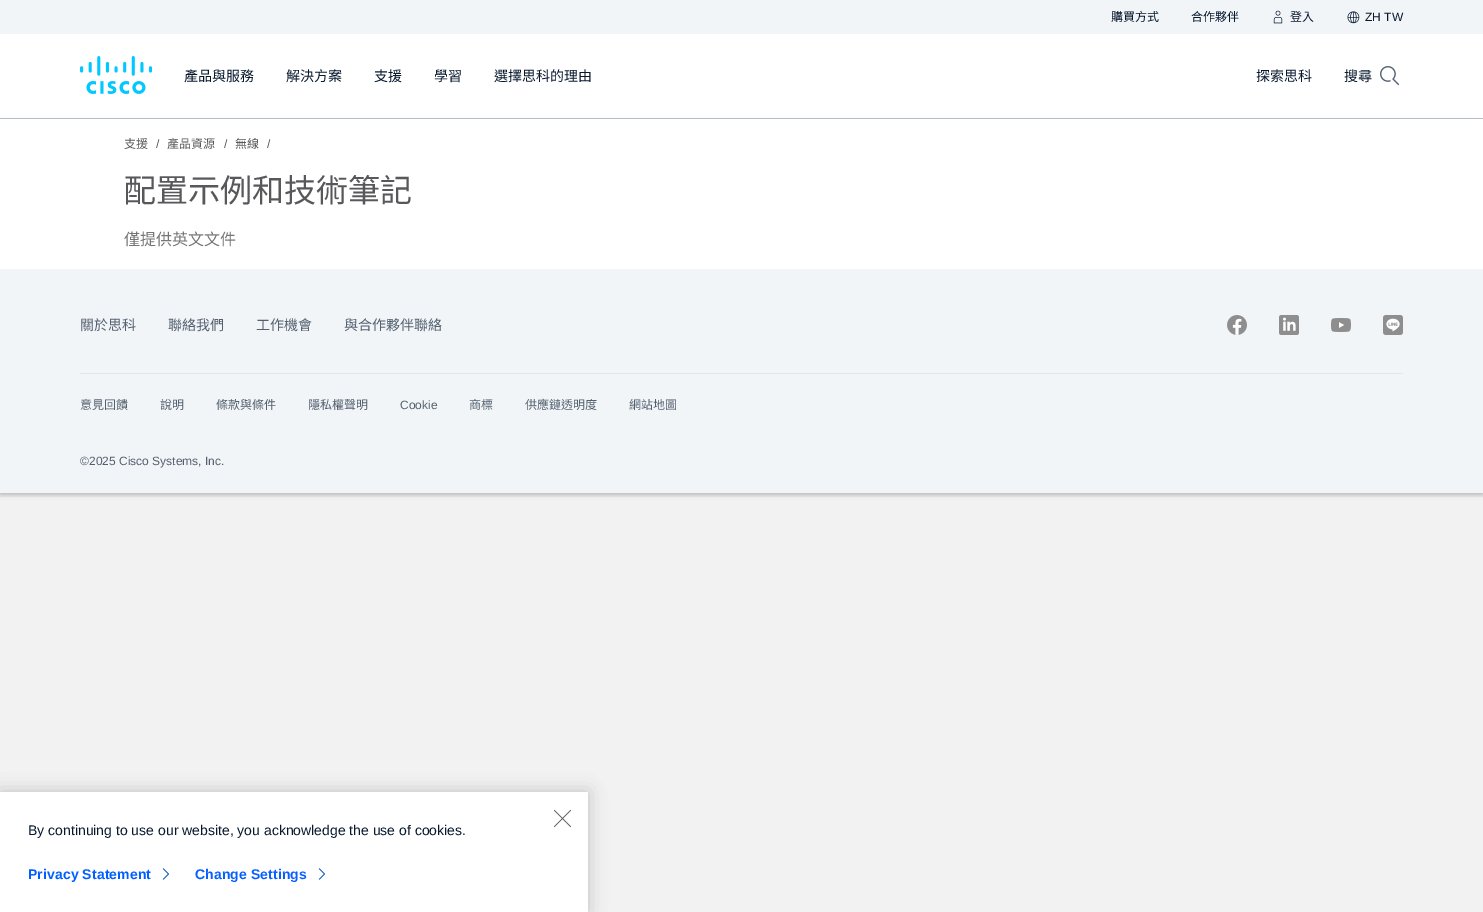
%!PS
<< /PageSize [1483 912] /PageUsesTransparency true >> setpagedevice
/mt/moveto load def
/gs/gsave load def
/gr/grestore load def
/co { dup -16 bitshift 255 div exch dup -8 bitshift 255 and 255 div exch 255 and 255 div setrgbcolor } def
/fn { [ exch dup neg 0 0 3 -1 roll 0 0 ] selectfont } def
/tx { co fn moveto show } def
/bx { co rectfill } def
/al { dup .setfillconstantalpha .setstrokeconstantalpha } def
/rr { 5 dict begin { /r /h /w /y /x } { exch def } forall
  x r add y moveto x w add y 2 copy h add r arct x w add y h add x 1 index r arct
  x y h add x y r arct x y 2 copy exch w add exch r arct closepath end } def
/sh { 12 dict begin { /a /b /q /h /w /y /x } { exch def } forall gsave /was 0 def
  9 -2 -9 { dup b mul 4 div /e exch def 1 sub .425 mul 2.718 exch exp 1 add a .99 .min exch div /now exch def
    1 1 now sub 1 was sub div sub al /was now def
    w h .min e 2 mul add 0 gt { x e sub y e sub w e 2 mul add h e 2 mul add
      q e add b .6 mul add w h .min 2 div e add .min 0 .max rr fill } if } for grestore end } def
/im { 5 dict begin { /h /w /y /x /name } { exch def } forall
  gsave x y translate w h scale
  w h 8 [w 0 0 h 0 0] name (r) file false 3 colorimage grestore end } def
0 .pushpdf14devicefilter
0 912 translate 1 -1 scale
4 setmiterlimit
0 0 1483 912 16#F2F2F2 bx
0 0 1483 34 16#F2F5F7 bx
(media/1.raw) 1273 10 10 14 im
(media/2.raw) 1347 11 13 13 im
0 34 1483 84 16#FFFFFF bx
0 118 1483 1 16#B9C1C9 bx
(media/3.raw) 80 56 72 38 im
(media/4.raw) 1380 66 20 20 im
16#000000 co
0 121 1483 374 0 2.5 .12 sh
0 119 1483 150 16#FFFFFF bx
0 269 1483 224 16#F2F5F7 bx
gs
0 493 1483 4 rectclip
16#000000 co
0 271 1483 224 0 2.5 .12 sh
gr
(media/5.raw) 1227 315 20 20 im
(media/6.raw) 1279 315 20 20 im
(media/7.raw) 1331 318 20 14 im
(media/8.raw) 1383 315 20 20 im
80 373 1323 1 16#E6E7E8 bx
16#000000 co
0 792 588 120 0 9 .2 sh
0 792 588 120 16#FFFFFF bx
(media/9.raw) 553 809 19 19 im
(media/10.raw) 162 868 7 12 im
(media/10.raw) 318 868 7 12 im
(購買方式) 1111 21 /NotoSansCJKTC-Regular 12 16#07182D tx
(合作夥伴) 1191 21 /NotoSansCJKTC-Regular 12 16#07182D tx
(登入) 1290 21 /NotoSansCJKTC-Regular 12 16#07182D tx
(ZH TW) 1365 21 /LiberationSans-Regular 12 16#07182D tx
(產品與服務) 184 81 /NotoSansCJKTC-Regular 14 16#07182D tx
(解決方案) 286 81 /NotoSansCJKTC-Regular 14 16#07182D tx
(支援) 374 81 /NotoSansCJKTC-Regular 14 16#07182D tx
(學習) 434 81 /NotoSansCJKTC-Regular 14 16#07182D tx
(選擇思科的理由) 494 81 /NotoSansCJKTC-Regular 14 16#07182D tx
(探索思科) 1256 81 /NotoSansCJKTC-Regular 14 16#07182D tx
(搜尋) 1344 81 /NotoSansCJKTC-Regular 14 16#07182D tx
(支援) 124 148 /NotoSansCJKTC-Regular 12 16#58585B tx
(/) 156 148 /LiberationSans-Regular 12 16#58585B tx
(產品資源) 167 148 /NotoSansCJKTC-Regular 12 16#58585B tx
(/) 224 148 /LiberationSans-Regular 12 16#58585B tx
(無線) 235 148 /NotoSansCJKTC-Regular 12 16#58585B tx
(/) 267 148 /LiberationSans-Regular 12 16#58585B tx
(配置示例和技術筆記) 124 202 /NotoSansCJKTC-Regular 32 16#58585B tx
(僅提供英文文件) 124 245 /NotoSansCJKTC-Regular 16 16#767676 tx
(關於思科) 80 330 /NotoSansCJKTC-Regular 14 16#536070 tx
(聯絡我們) 168 330 /NotoSansCJKTC-Regular 14 16#536070 tx
(工作機會) 256 330 /NotoSansCJKTC-Regular 14 16#536070 tx
(與合作夥伴聯絡) 344 330 /NotoSansCJKTC-Regular 14 16#536070 tx
(意見回饋) 80 409 /NotoSansCJKTC-Regular 12 16#536070 tx
(說明) 160 409 /NotoSansCJKTC-Regular 12 16#536070 tx
(條款與條件) 216 409 /NotoSansCJKTC-Regular 12 16#536070 tx
(隱私權聲明) 308 409 /NotoSansCJKTC-Regular 12 16#536070 tx
(Cookie) 400 409 /LiberationSans-Regular 12 16#536070 tx
(商標) 469 409 /NotoSansCJKTC-Regular 12 16#536070 tx
(供應鏈透明度) 525 409 /NotoSansCJKTC-Regular 12 16#536070 tx
(網站地圖) 629 409 /NotoSansCJKTC-Regular 12 16#536070 tx
(©2025 Cisco Systems, Inc.) 80 465 /LiberationSans-Regular 12 16#536070 tx
(By continuing to use our website, you acknowledge the use of cookies.) 28 835 /LiberationSans-Regular 14 16#07182D tx
/LiberationSans-Bold 14 fn
16#0060FF co
28 879 mt .1 0 (Privacy Statement) ashow
16#0A60FF co
195 879 mt .1 0 (Change Settings) ashow
.poppdf14devicefilter showpage
